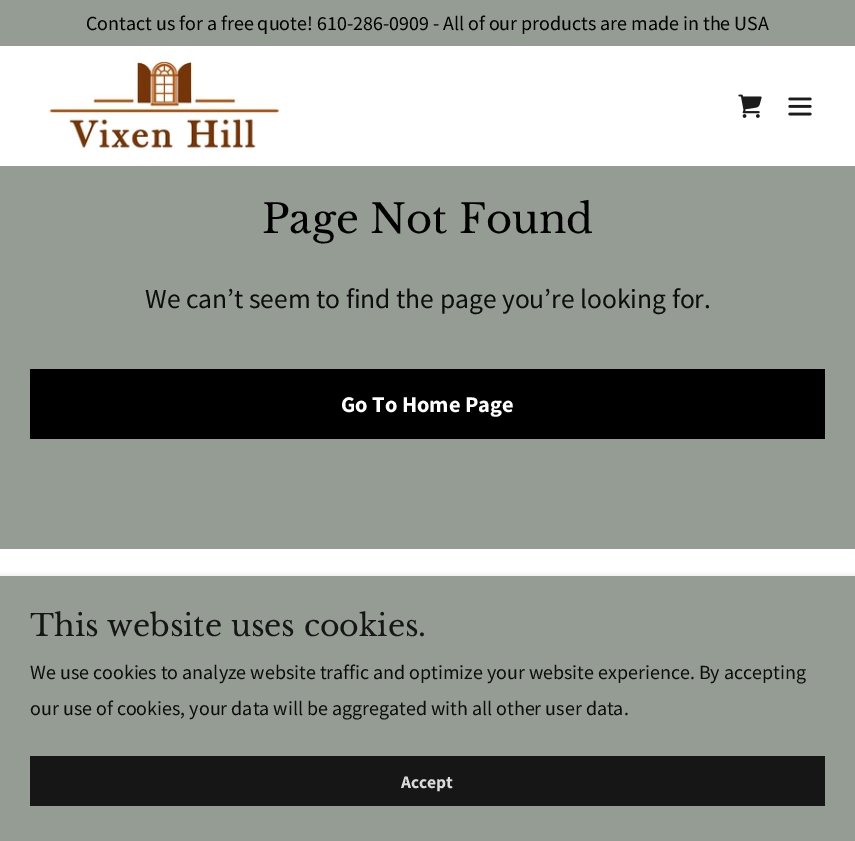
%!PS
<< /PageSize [855 841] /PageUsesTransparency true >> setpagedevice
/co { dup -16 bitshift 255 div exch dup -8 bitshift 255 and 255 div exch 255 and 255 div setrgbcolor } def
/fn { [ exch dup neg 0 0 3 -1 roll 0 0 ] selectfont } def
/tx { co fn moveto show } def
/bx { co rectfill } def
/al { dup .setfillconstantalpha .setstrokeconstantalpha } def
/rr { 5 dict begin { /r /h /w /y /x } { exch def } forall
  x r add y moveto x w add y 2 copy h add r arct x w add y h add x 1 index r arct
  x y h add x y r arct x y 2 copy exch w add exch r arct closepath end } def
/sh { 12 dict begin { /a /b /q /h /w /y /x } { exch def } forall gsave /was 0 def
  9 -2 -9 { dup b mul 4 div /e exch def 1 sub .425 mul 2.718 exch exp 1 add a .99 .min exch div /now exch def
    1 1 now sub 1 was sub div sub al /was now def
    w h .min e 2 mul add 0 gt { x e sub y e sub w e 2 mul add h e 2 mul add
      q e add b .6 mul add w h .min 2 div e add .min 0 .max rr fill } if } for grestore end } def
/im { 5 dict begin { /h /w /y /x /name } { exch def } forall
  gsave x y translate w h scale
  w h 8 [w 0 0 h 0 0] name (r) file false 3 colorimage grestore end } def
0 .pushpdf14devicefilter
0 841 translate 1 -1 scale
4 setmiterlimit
0 0 855 841 16#FFFFFF bx
0 0 855 46 16#959C94 bx
(media/1.raw) 48 56 232 94 im
(media/2.raw) 738 94 24 24 im
(media/3.raw) 788 97 24 19 im
0 166 855 383 16#959C94 bx
30 369 795 70 16#000000 bx
0 579 855 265 0 4 .3 sh
0 576 855 265 16#959C94 bx
30 756 795 50 16#161616 bx
(Contact us for a free quote! 610-286-0909 - All of our products are made in the USA) 86 30 /SourceSansPro-Regular 20 16#000000 tx
(Page Not Found) 262 233 /LibreBaskerville-Regular 40 16#000000 tx
(We can’t seem to find the page you’re looking for.) 145 308 /SourceSansPro-Regular 27.5 16#0D0D0D tx
(Go To Home Page) 341 412 /SourceSansPro-Bold 22.5 16#FFFFFF tx
(This website uses cookies.) 30 636 /LibreBaskerville-Regular 30 16#161616 tx
(We use cookies to analyze website traffic and optimize your website experience. By accepting) 30 679 /SourceSansPro-Regular 20 16#0D0D0D tx
(our use of cookies, your data will be aggregated with all other user data.) 30 715 /SourceSansPro-Regular 20 16#0D0D0D tx
(Accept) 401 788 /SourceSansPro-Bold 17.5 16#DBDBDB tx
.poppdf14devicefilter showpage
